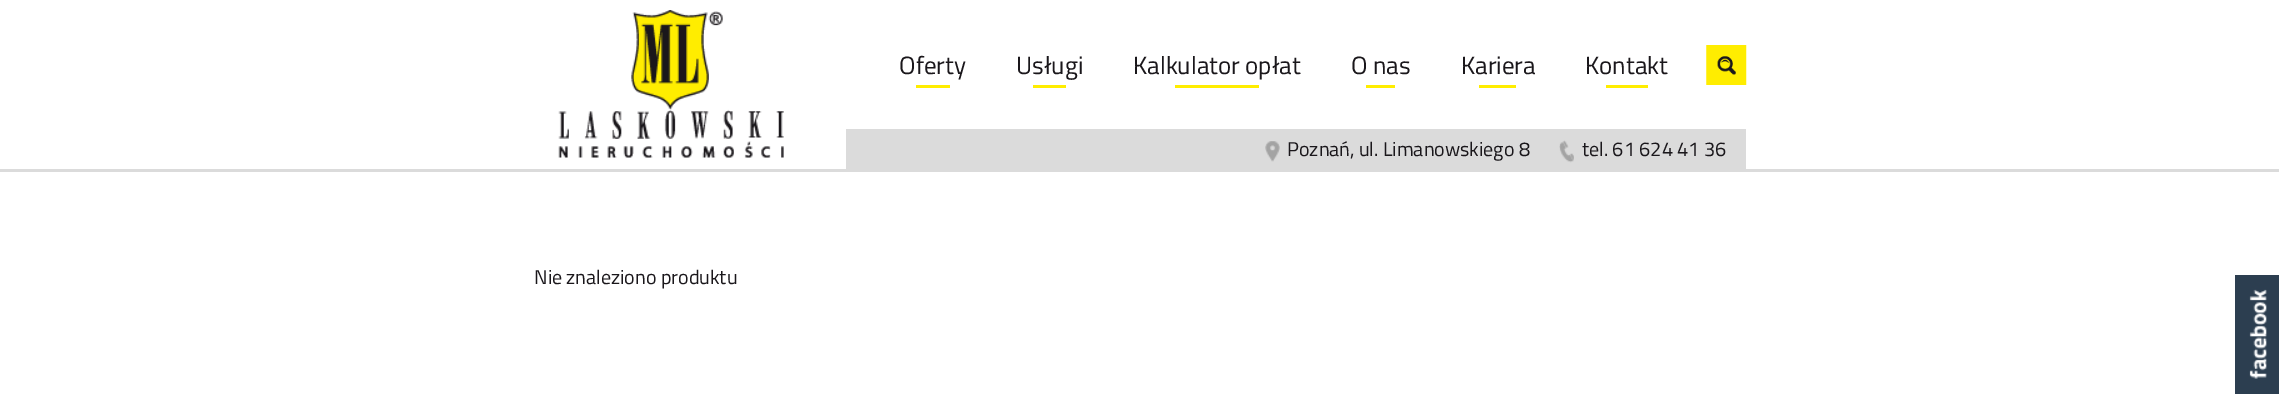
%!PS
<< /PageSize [2279 394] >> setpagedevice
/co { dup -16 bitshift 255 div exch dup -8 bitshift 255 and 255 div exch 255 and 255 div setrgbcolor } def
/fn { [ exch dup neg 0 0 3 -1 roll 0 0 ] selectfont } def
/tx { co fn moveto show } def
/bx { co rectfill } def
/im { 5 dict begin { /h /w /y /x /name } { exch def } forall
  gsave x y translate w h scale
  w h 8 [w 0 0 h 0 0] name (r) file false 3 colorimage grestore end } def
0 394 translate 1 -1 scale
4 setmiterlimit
0 0 2279 394 16#FFFFFF bx
(media/1.raw) 558 10 226 148 im
916 85 34 3 16#FFED00 bx
1033 85 33 3 16#FFED00 bx
1175 85 84 3 16#FFED00 bx
1366 85 29 3 16#FFED00 bx
1479 85 37 3 16#FFED00 bx
1606 85 42 3 16#FFED00 bx
(media/2.raw) 1706 45 41 40 im
846 129 900 40 16#DBDBDB bx
(media/3.raw) 1265 141 15 21 im
(media/4.raw) 1559 140 15 23 im
0 169 2279 3 16#DBDBDB bx
2235 275 44 119 16#2C3E50 bx
(media/5.raw) 2249 289 18 90 im
(Oferty) 899 74 /TitilliumWeb-Regular 25 16#1A171B tx
(Usługi) 1016 74 /TitilliumWeb-Regular 25 16#1A171B tx
(Kalkulator opłat) 1133 74 /TitilliumWeb-Regular 25 16#1A171B tx
(O nas) 1351 74 /TitilliumWeb-Regular 25 16#1A171B tx
(Kariera) 1461 74 /TitilliumWeb-Regular 25 16#1A171B tx
(Kontakt) 1585 74 /TitilliumWeb-Regular 25 16#1A171B tx
(Poznań, ul. Limanowskiego 8) 1287 156 /TitilliumWeb-Regular 20 16#1A171B tx
(tel. 61 624 41 36) 1582 156 /TitilliumWeb-Regular 20 16#1A171B tx
(Nie znaleziono produktu) 534 284 /TitilliumWeb-Regular 20 16#1A171B tx
showpage
